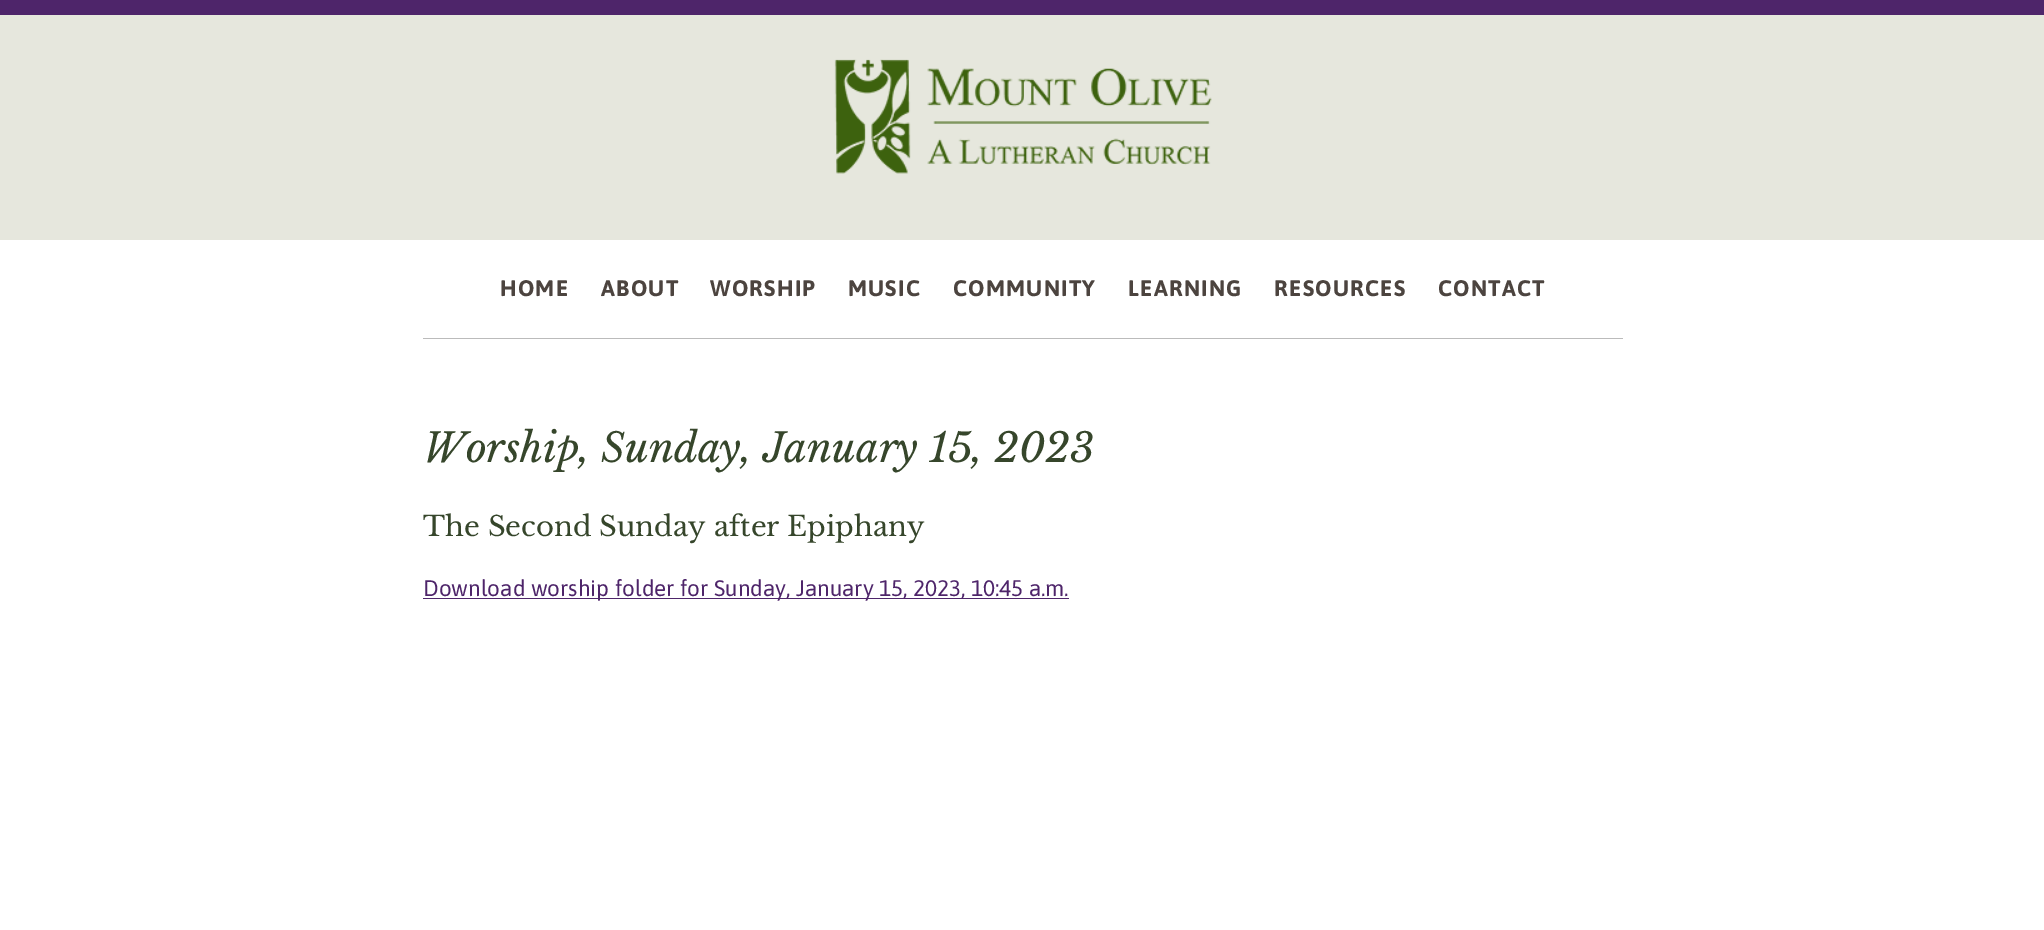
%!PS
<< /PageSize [2044 930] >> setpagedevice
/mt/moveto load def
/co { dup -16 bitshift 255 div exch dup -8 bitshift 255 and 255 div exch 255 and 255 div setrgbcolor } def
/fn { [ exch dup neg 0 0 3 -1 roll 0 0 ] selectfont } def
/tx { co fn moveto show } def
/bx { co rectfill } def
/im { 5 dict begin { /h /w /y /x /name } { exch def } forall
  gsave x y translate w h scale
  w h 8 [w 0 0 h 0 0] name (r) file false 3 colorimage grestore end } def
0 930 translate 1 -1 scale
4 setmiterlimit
0 0 2044 930 16#FFFFFF bx
0 0 2044 15 16#4E256A bx
0 15 2044 225 16#E6E7DD bx
(media/1.raw) 834 59 378 115 im
423 338 1200 1 16#BBBBBB bx
423 598 646 1 16#4E256A bx
/Asap-Bold 22.5 fn
16#4C443F co
500 296 mt 1.25 0 (HOME) ashow
601 296 mt 1.25 0 (ABOUT) ashow
710 296 mt 1.25 0 (WORSHIP) ashow
848 296 mt 1.25 0 (MUSIC) ashow
953 296 mt 1.25 0 (COMMUNITY) ashow
1128 296 mt 1.25 0 (LEARNING) ashow
1274 296 mt 1.25 0 (RESOURCES) ashow
1438 296 mt 1.25 0 (CONTACT) ashow
(Worship, Sunday, January 15, 2023) 423 462 /LibreBaskerville-Italic 40 16#36462B tx
(The Second Sunday after Epiphany) 423 536 /LibreBaskerville-Regular 27.5 16#36462B tx
(Download worship folder for Sunday, January 15, 2023, 10:45 a.m.) 423 596 /Asap-Regular 22.5 16#4E256A tx
showpage
